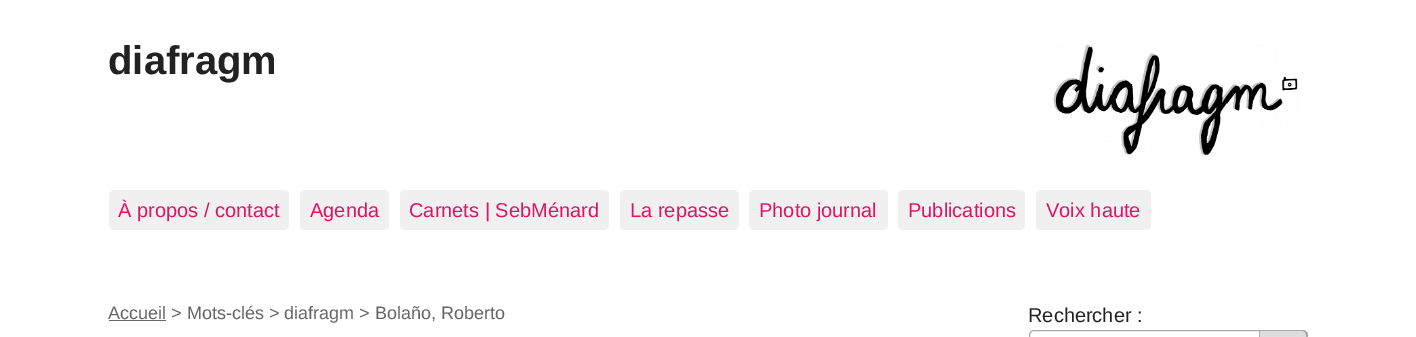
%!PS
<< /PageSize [1416 337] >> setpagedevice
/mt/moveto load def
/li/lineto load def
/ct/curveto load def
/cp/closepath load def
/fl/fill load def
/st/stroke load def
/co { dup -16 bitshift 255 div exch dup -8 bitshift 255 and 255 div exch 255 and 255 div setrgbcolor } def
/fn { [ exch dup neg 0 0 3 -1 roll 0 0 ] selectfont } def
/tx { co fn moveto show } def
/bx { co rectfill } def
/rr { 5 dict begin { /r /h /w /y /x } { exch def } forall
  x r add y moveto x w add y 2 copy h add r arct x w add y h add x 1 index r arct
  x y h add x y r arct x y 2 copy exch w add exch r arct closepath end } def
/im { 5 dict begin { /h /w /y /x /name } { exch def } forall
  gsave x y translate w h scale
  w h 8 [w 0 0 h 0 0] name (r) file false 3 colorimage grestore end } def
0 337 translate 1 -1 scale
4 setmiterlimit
0 0 1416 337 16#FFFFFF bx
(media/1.raw) 1053 44 245 112 im
16#F0F0F0 co
109 190 180 40 5 rr fl
300 190 89 40 5 rr fl
400 190 209 40 5 rr fl
620 190 119 40 5 rr fl
749 190 139 40 5 rr fl
898 190 127 40 5 rr fl
1036 190 115 40 5 rr fl
109 320 57 1 16#666666 bx
16#AAAAAA co
1034 330.5 mt 1259.5 330.5 li 1259.5 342.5 li 1034 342.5 li 1031.5 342.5 1029.5 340.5 1029.5 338 ct 1029.5 335 li 1029.5 332.5 1031.5 330.5 1034 330.5 ct cp st
16#DDDDDD co
1260 330 mt 1303 330 li 1306 330 1308 332 1308 335 ct 1308 337 li 1308 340 1306 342 1303 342 ct 1260 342 li cp fl
16#AAAAAA co
1260 330 mt 1302 330 li 1305 330 1308 332 1308 335 ct 1308 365 li 1308 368 1305 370 1302 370 ct 1260 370 li cp 1260 331 mt 1302 331 li 1305 331 1306 333 1306 335 ct 1306 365 li 1306 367 1305 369 1302 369 ct 1260 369 li cp eofill
(diafragm) 108 74 /LiberationSans-Bold 40 16#222222 tx
(À propos / contact) 118 217 /LiberationSans-Regular 20 16#DB1762 tx
(Agenda) 310 217 /LiberationSans-Regular 20 16#DB1762 tx
(Carnets | SebMénard) 409 217 /LiberationSans-Regular 20 16#DB1762 tx
(La repasse) 630 217 /LiberationSans-Regular 20 16#DB1762 tx
(Photo journal) 759 217 /LiberationSans-Regular 20 16#DB1762 tx
(Publications) 908 217 /LiberationSans-Regular 20 16#DB1762 tx
(Voix haute) 1046 217 /LiberationSans-Regular 20 16#DB1762 tx
(Accueil > Mots-clés > diafragm > Bolaño, Roberto) 108 319 /LiberationSans-Regular 18 16#666666 tx
(Rechercher :) 1028 322 /LiberationSans-Regular 20 16#222222 tx
showpage
